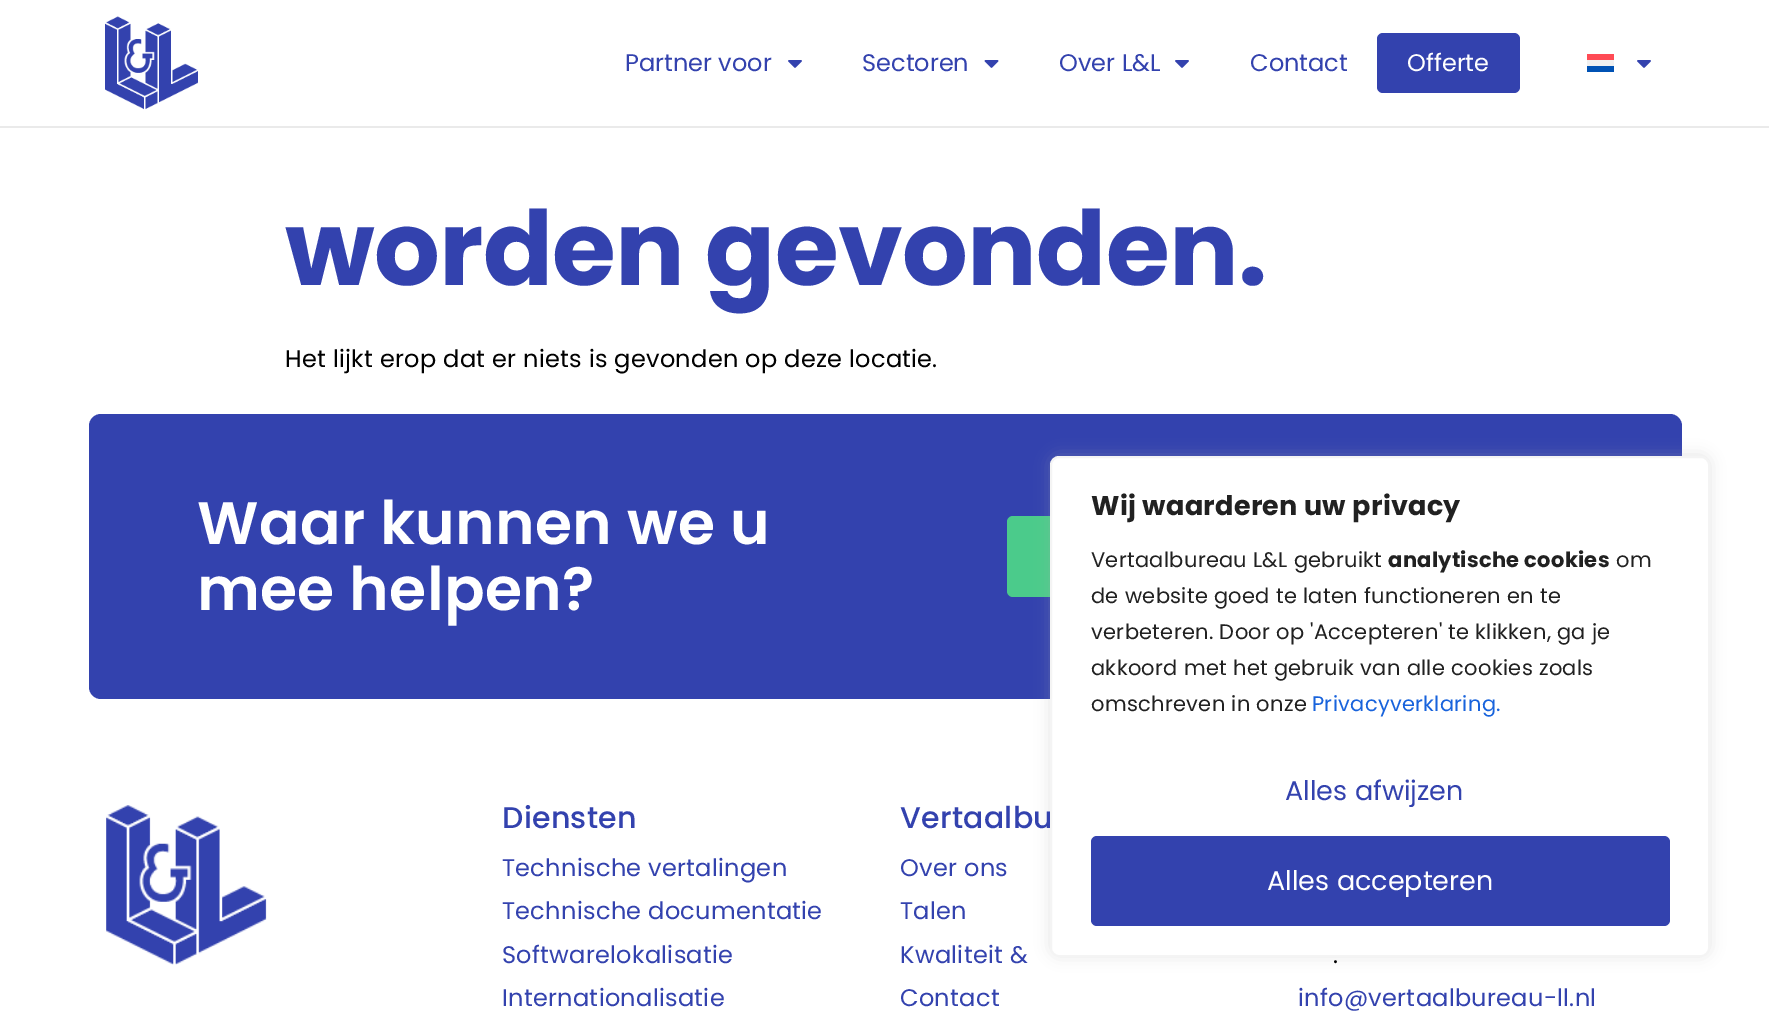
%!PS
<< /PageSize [1769 1017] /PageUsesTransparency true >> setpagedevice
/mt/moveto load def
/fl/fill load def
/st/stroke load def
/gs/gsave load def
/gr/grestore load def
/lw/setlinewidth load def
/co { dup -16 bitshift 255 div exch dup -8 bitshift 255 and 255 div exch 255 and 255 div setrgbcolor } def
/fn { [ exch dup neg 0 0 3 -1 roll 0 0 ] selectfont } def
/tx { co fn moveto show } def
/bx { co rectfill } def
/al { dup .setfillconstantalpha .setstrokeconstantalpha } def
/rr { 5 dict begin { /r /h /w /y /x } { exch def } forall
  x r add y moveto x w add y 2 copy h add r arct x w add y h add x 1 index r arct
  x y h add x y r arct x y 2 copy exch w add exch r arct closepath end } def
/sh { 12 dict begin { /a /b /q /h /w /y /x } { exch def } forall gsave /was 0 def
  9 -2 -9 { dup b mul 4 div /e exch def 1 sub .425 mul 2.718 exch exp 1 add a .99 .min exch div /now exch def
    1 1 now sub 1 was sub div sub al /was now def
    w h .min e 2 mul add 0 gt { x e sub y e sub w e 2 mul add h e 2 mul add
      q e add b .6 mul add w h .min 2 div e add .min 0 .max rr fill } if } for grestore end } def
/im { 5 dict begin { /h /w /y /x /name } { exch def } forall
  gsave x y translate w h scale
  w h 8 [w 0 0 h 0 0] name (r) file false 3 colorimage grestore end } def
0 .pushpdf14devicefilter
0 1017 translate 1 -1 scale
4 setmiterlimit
0 0 1769 1017 16#FFFFFF bx
0 126 1769 2 16#EAEAEA bx
(media/1.raw) 105 16 93 94 im
(media/2.raw) 788 60 14 8 im
(media/3.raw) 984 60 15 8 im
(media/2.raw) 1175 60 14 8 im
16#3342AE co
1377 33 143 60 6 rr fl
1587 60 27 6 16#F0F0F0 bx
1587 66 27 6 16#0052B4 bx
1587 54 27 6 16#FF4B55 bx
(media/2.raw) 1637 60 14 8 im
16#3342AE co
89 414 1593 285 12 rr fl
16#4BCB8B co
1007 516 567 81 6 rr fl
16#ACABAB co
1050 455 660 501 9 7.5 .3 sh
(media/4.raw) 106 805 161 160 im
(Partner voor) 625 71 /Poppins-Regular 24 16#3342AE tx
(Sectoren) 862 71 /Poppins-Regular 24 16#3342AE tx
(Over L&L) 1059 71 /Poppins-Regular 24 16#3342AE tx
(Contact) 1250 71 /Poppins-Regular 24 16#3342AE tx
(Offerte) 1407 71 /Poppins-Regular 24 16#FFFFFF tx
/Poppins-Bold 103.5 fn
16#3342AE co
285 285 mt -.75 0 (worden gevonden.) ashow
/Poppins-Regular 24 fn
16#000000 co
285 367 mt .3 0 (Het lijkt erop dat er niets is gevonden op deze locatie.) ashow
/Poppins-SemiBold 60 fn
16#FFFFFF co
197 544 mt .3 0 (Waar kunnen we u) ashow
197 610 mt .3 0 (mee helpen?) ashow
/Poppins-Medium 30 fn
16#3342AE co
502 828 mt .3 0 (Diensten) ashow
/Poppins-Regular 24 fn
502 876 mt .3 0 (Technische vertalingen) ashow
502 919 mt .3 0 (Technische documentatie) ashow
502 963 mt .3 0 (Softwarelokalisatie) ashow
502 1006 mt .3 0 (Internationalisatie) ashow
/Poppins-Medium 30 fn
900 828 mt .3 0 (Vertaalbu) ashow
16#FFFFFF co
1051 457 658 499 8 rr gs fl gr
16#F4F4F4 co
2 lw
st
16#3342AE co
1091 836 579 90 6 rr fl
(Alles accepteren) 1267 890 /Poppins-Regular 27 16#FFFFFF tx
(Alles afwijzen) 1285 800 /Poppins-Regular 27 16#3342AE tx
/Poppins-Regular 21 fn
16#1863DC co
1312 711 mt .3 0 (Privacyverklaring.) ashow
16#212121 co
1091 711 mt .3 0 (omschreven in onze) ashow
1091 675 mt .3 0 (akkoord met het gebruik van alle cookies zoals) ashow
1091 639 mt .3 0 (verbeteren. Door op 'Accepteren' te klikken, ga je) ashow
1091 603 mt .3 0 (de website goed te laten functioneren en te) ashow
1616 567 mt .3 0 (om) ashow
/Poppins-Bold 21 fn
1388 567 mt .3 0 (analytische cookies) ashow
/Poppins-Regular 21 fn
1091 567 mt .3 0 (Vertaalbureau L&L gebruikt) ashow
/Poppins-Bold 27 fn
1091 515 mt .3 0 (Wij waarderen uw privacy) ashow
/Poppins-Regular 24 fn
16#3342AE co
900 876 mt .3 0 (Over ons) ashow
900 919 mt .3 0 (Talen) ashow
900 963 mt .3 0 (Kwaliteit &) ashow
900 1006 mt .3 0 (Contact) ashow
16#000000 co
1333 963 mt .3 0 (.) ashow
16#3342AE co
1298 1006 mt .3 0 (info@vertaalbureau-ll.nl) ashow
.poppdf14devicefilter showpage
